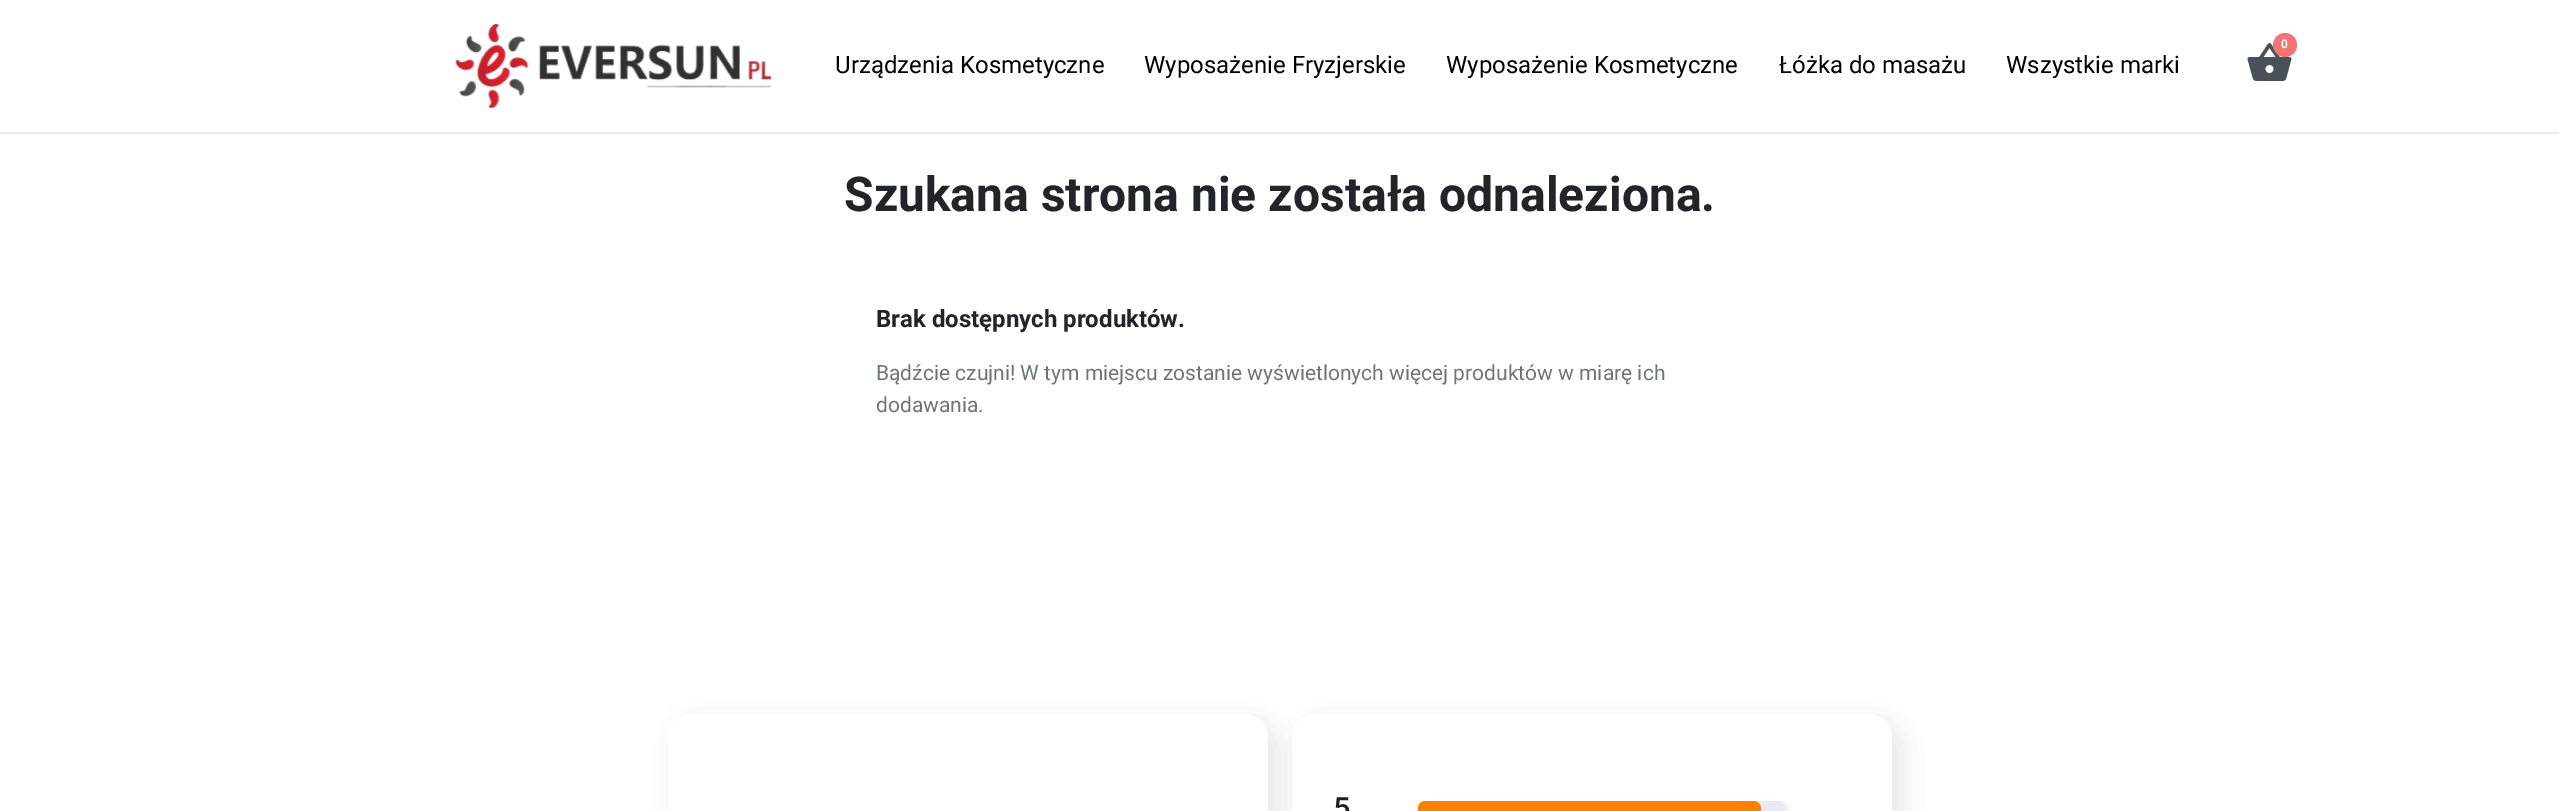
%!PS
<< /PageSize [2559 811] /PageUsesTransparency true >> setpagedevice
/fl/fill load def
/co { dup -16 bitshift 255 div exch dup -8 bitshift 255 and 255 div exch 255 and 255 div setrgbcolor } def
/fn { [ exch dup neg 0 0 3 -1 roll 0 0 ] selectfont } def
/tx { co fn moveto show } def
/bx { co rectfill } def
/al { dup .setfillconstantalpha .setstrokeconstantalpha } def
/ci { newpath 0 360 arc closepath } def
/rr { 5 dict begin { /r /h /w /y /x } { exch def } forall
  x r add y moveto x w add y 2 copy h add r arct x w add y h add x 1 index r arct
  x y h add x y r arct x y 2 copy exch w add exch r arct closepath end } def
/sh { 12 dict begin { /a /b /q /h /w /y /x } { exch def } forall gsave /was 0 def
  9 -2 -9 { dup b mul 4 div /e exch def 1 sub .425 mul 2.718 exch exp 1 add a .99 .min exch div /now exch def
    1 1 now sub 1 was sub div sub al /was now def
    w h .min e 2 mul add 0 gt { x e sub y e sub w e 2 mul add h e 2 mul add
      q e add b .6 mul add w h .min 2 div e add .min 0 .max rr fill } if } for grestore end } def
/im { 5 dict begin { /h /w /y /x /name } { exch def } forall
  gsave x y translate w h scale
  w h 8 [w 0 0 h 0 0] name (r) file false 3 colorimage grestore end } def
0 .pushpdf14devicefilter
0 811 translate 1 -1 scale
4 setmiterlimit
0 0 2559 811 16#FFFFFF bx
0 132 2559 2 16#EBEBEB bx
(media/1.raw) 455 24 316 84 im
(media/2.raw) 2247 43 45 38 im
16#F27474 co
2285 45 12 ci fl
16#000000 co
677 723 600 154 24 14 .1 sh
16#FFFFFF co
668 714 600 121 24 rr fl
16#000000 co
1301 723 600 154 24 14 .1 sh
16#FFFFFF co
1292 714 600 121 24 rr fl
16#000000 co
1419 803 369 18 8 2 .08 sh
16#E8EAF9 co
1418 801 366 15 6 rr fl
16#FF8000 co
1418 801 343 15 7.5 rr fl
(0) 2281 48 /Roboto-Bold 12 16#FFFFFF tx
(Urządzenia Kosmetyczne) 835 73 /Roboto-Regular 24 16#000000 tx
(Wyposażenie Fryzjerskie) 1144 73 /Roboto-Regular 24 16#000000 tx
(Wyposażenie Kosmetyczne) 1446 73 /Roboto-Regular 24 16#000000 tx
(Łóżka do masażu) 1779 73 /Roboto-Regular 24 16#000000 tx
(Wszystkie marki) 2006 73 /Roboto-Regular 24 16#000000 tx
(Szukana strona nie została odnaleziona.) 844 211 /Roboto-Bold 48 16#212529 tx
(Brak dostępnych produktów.) 876 327 /Roboto-Bold 24 16#212529 tx
(Bądźcie czujni! W tym miejscu zostanie wyświetlonych więcej produktów w miarę ich) 876 380 /Roboto-Regular 21 16#6C757D tx
(dodawania.) 876 412 /Roboto-Regular 21 16#6C757D tx
(5) 1334 817 /Inter-SemiBold 27 16#1D1D1B tx
.poppdf14devicefilter showpage
